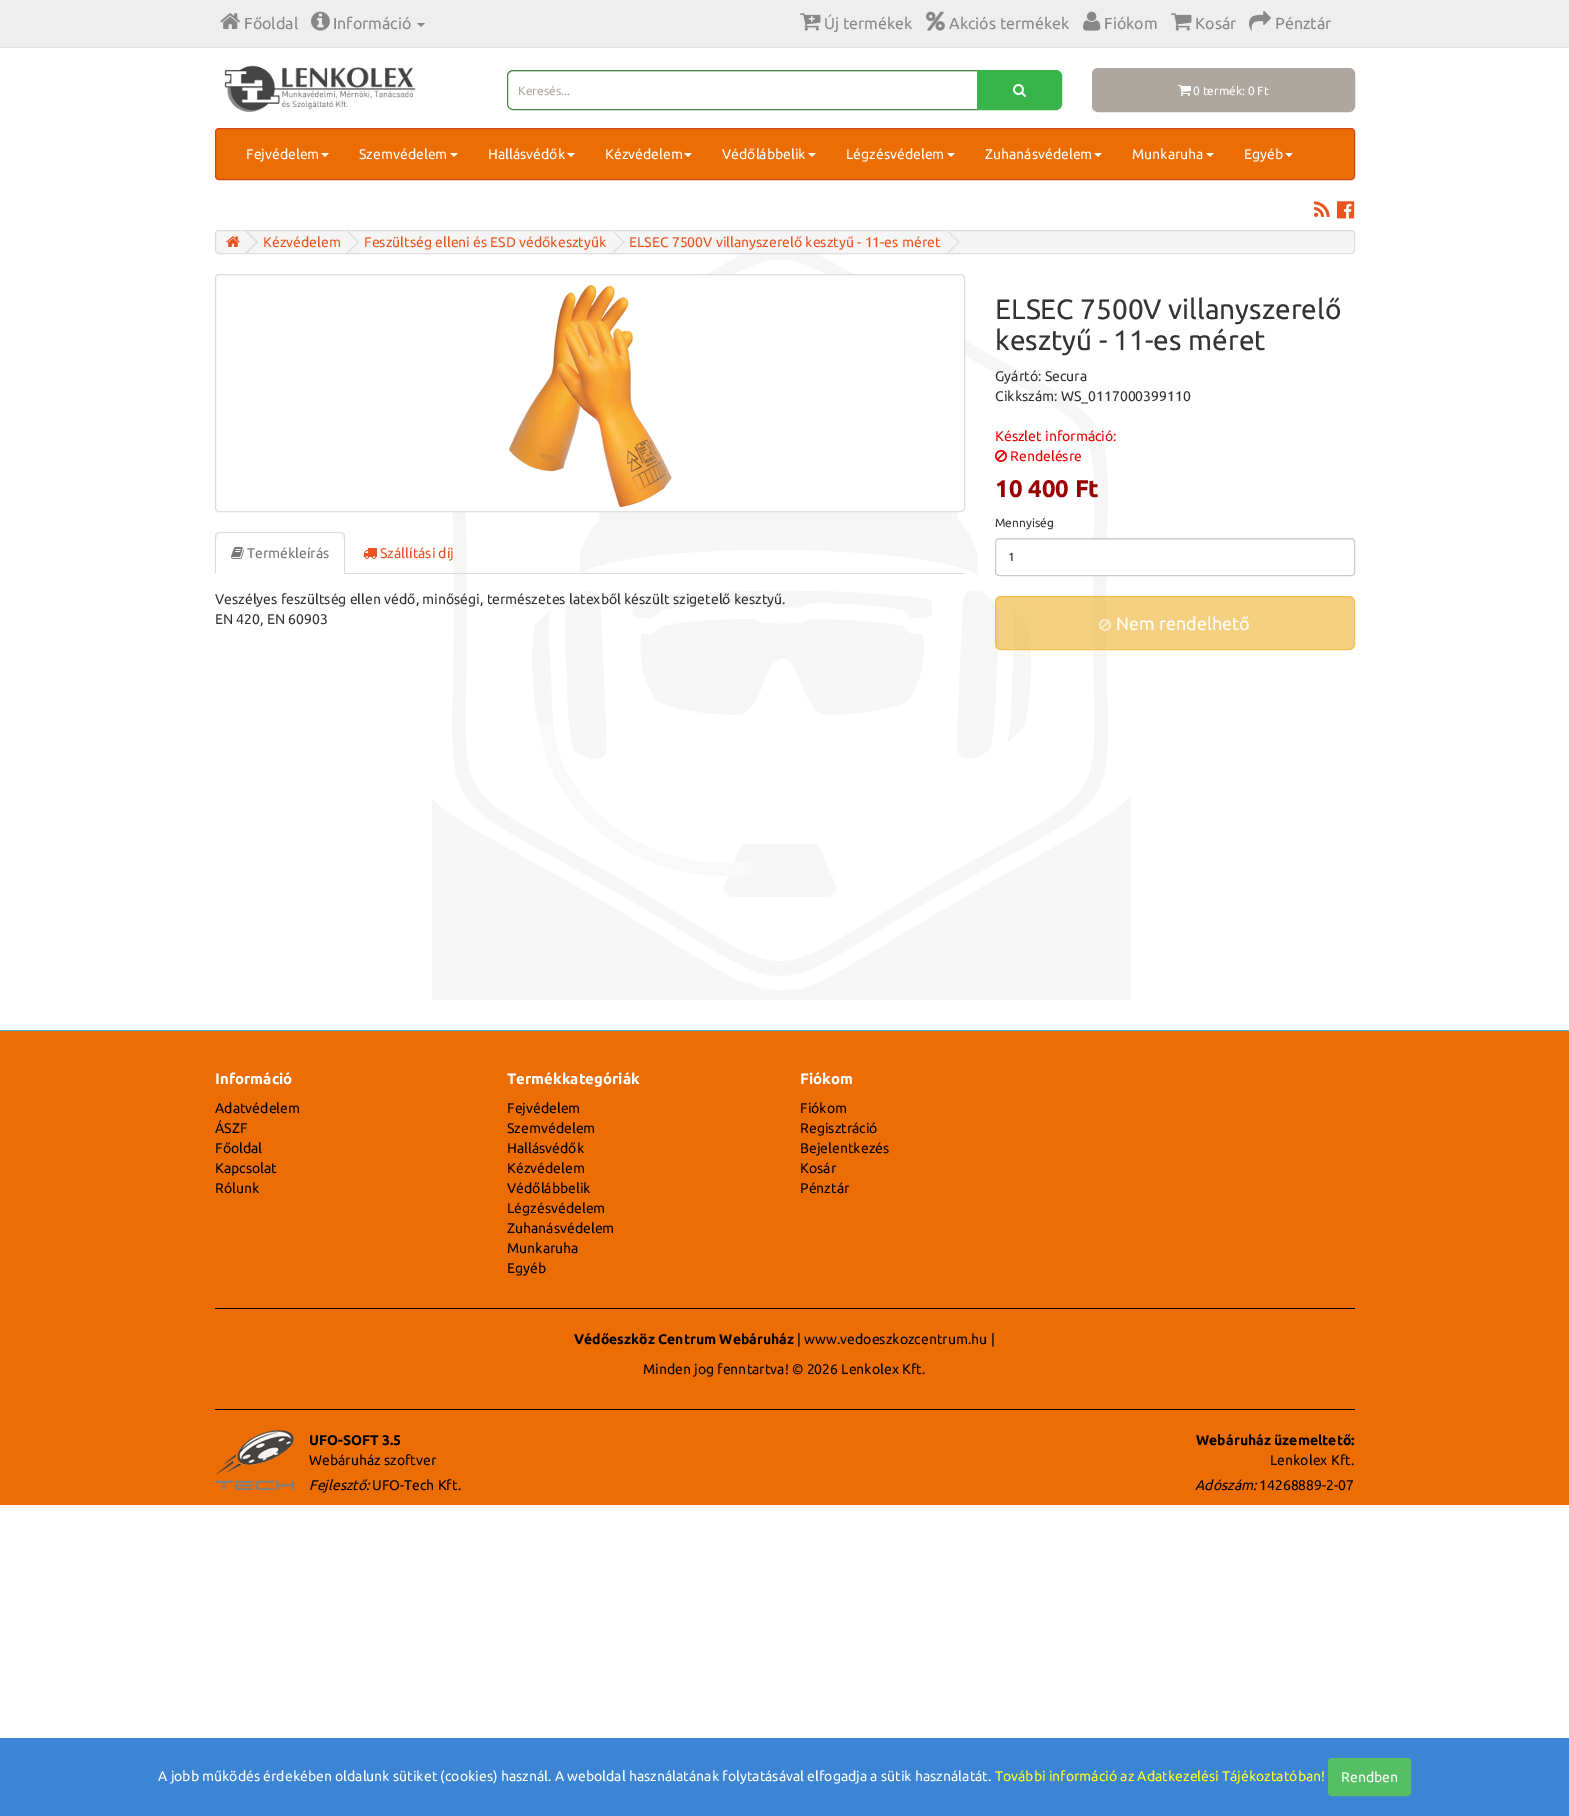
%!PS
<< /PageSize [1569 1816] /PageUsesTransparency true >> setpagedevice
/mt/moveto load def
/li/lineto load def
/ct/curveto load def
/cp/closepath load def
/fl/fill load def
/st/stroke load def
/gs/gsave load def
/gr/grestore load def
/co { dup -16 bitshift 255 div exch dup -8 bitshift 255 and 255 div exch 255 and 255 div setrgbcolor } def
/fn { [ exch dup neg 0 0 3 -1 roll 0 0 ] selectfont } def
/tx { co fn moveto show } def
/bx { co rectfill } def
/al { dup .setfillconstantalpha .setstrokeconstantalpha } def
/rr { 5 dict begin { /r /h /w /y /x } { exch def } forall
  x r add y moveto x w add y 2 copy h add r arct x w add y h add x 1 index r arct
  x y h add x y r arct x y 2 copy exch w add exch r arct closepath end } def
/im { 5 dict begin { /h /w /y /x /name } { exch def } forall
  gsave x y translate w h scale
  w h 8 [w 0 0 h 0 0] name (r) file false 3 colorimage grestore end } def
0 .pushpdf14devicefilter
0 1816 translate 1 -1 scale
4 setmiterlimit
0 0 1569 1816 16#FFFFFF bx
0 0 1569 47 16#EEEEEE bx
0 47 1569 1 16#E2E2E2 bx
(media/1.raw) 220 13 20 16 im
(media/2.raw) 311 11 19 20 im
16#888888 co
417 23 mt 425 23 li 421 27 li cp fl
(media/3.raw) 800 13 21 18 im
(media/4.raw) 926 11 19 20 im
(media/5.raw) 1083 11 18 20 im
(media/6.raw) 1171 13 21 18 im
(media/7.raw) 1249 11 22 20 im
(media/8.raw) 224 65 192 48 im
16#ECECEC co
513 72 mt 977 72 li 977 71 li 513 71 li 510 71 508 73 508 76 ct 508 77 li 508 74 510 72 513 72 ct cp fl
16#468847 co
513 70.5 mt 977.5 70.5 li 977.5 109.5 li 513 109.5 li 510 109.5 507.5 107 507.5 104 ct 507.5 76 li 507.5 73 510 70.5 513 70.5 ct cp st
16#38B44A co
977.5 70.5 mt 1056 70.5 li 1059 70.5 1061.5 73 1061.5 76 ct 1061.5 104 li 1061.5 107 1059 109.5 1056 109.5 ct 977.5 109.5 li cp gs fl gr
st
(media/9.raw) 1013 84 13 13 im
16#AEA79F co
1092.5 68.5 262 43 5.5 rr gs fl gr
st
(media/10.raw) 1178 85 13 11 im
16#ED6D05 co
215.5 128.5 1139 51 3.5 rr gs fl gr
16#D34615 co
st
16#FFFFFF co
321 153 mt 329 153 li 325 157 li cp fl
450 153 mt 458 153 li 454 157 li cp fl
567 153 mt 575 153 li 571 157 li cp fl
684 153 mt 692 153 li 688 157 li cp fl
808 153 mt 816 153 li 812 157 li cp fl
947 153 mt 955 153 li 951 157 li cp fl
1094 153 mt 1102 153 li 1098 157 li cp fl
1206 153 mt 1214 153 li 1210 157 li cp fl
1285 153 mt 1293 153 li 1289 157 li cp fl
(media/11.raw) 1314 201 16 16 im
(media/12.raw) 1337 201 18 18 im
(media/13.raw) 432 254 699 746 im
16#F5F5F5 co
215.5 230.5 1139 23 3.5 rr gs fl gr
16#DDDDDD co
st
(media/14.raw) 226 236 14 11 im
245.5 231.5 mt 246.5 230.5 li 258 242 li 257 242.5 li cp fl
245.5 252.5 mt 257 241.5 li 258 242 li 246.5 253.5 li cp fl
347 231.5 mt 347.5 230.5 li 359 242 li 358 242.5 li cp fl
347 252.5 mt 358 241.5 li 359 242 li 347.5 253.5 li cp fl
612.5 231.5 mt 613 230.5 li 624.5 242 li 624 242.5 li cp fl
612.5 252.5 mt 624 241.5 li 624.5 242 li 613 253.5 li cp fl
947.5 231.5 mt 948 230.5 li 959.5 242 li 958.5 242.5 li cp fl
947.5 252.5 mt 958.5 241.5 li 959.5 242 li 948 253.5 li cp fl
16#FFFFFF co
215.5 274.5 749 237 3.5 rr gs fl gr
16#DDDDDD co
st
(media/15.raw) 509 284 163 223 im
345 573 620 1 16#DDDDDD bx
219 532 mt 216 533 li 217 534 li 219 533 li 341 533 li 343 534 li 344 533 li 341 532 li cp fl
345 574 mt 345 536 li 345 535 344 534 344 533 ct 343 534 li 345 536 344 568 344 573 ct cp fl
215 574 mt 216 573 li 216 568 215 536 217 534 ct 216 533 li 215 536 li cp fl
(media/16.raw) 231 547 13 12 im
(media/17.raw) 363 548 14 11 im
(media/18.raw) 995 450 12 12 im
16#FFFFFF co
995 538 360 38 4 rr fl
16#ECECEC co
999 540 mt 1351 540 li 1353 540 1354 541 1354 543 ct 1354 541 1353 539 1351 539 ct 999 539 li 997 540 li 996 543 li 996 541 997 540 999 540 ct cp fl
16#CCCCCC co
995.5 538.5 359 37 3.5 rr st
0.65 al
16#EFB73E co
995 596 360 54 6 rr fl
995.5 596.5 359 53 5.5 rr st
1 al
(media/19.raw) 1099 619 12 12 im
0 1031 1569 474 16#ED6D05 bx
0 1030 1569 1 16#3DB5D8 bx
215 1308 1140 1 16#020203 bx
215 1409 1140 1 16#020203 bx
(media/20.raw) 215 1430 79 60 im
0 1738 1569 78 16#3C84D4 bx
16#56BF65 co
1328.5 1758.5 82 37 3.5 rr gs fl gr
st
(Főoldal) 244 29 /Ubuntu-Regular 16 16#888888 tx
(Információ) 333 29 /Ubuntu-Regular 16 16#888888 tx
(Új termékek) 824 29 /Ubuntu-Regular 16 16#888888 tx
(Akciós termékek) 949 29 /Ubuntu-Regular 16 16#888888 tx
(Fiókom) 1104 29 /Ubuntu-Regular 16 16#888888 tx
(Kosár) 1195 29 /Ubuntu-Regular 16 16#888888 tx
(Pénztár) 1275 29 /Ubuntu-Regular 16 16#888888 tx
(Keresés...) 518 95 /Ubuntu-Regular 12 16#AEA79F tx
(0 termék: 0 Ft) 1193 95 /Ubuntu-Regular 12 16#FFFFFF tx
(Fejvédelem) 246 159 /Ubuntu-Regular 14 16#FFFFFF tx
(Szemvédelem) 359 159 /Ubuntu-Regular 14 16#FFFFFF tx
(Hallásvédők) 488 159 /Ubuntu-Regular 14 16#FFFFFF tx
(Kézvédelem) 605 159 /Ubuntu-Regular 14 16#FFFFFF tx
(Védőlábbelik) 722 159 /Ubuntu-Regular 14 16#FFFFFF tx
(Légzésvédelem) 846 159 /Ubuntu-Regular 14 16#FFFFFF tx
(Zuhanásvédelem) 985 159 /Ubuntu-Regular 14 16#FFFFFF tx
(Munkaruha) 1132 159 /Ubuntu-Regular 14 16#FFFFFF tx
(Egyéb) 1244 159 /Ubuntu-Regular 14 16#FFFFFF tx
(Kézvédelem) 263 247 /Ubuntu-Regular 14 16#E95420 tx
(Feszültség elleni és ESD védőkesztyűk) 364 247 /Ubuntu-Regular 14 16#E95420 tx
(ELSEC 7500V villanyszerelő kesztyű - 11-es méret) 629 247 /Ubuntu-Regular 14 16#E95420 tx
(Termékleírás) 247 558 /Ubuntu-Regular 14 16#777777 tx
(Szállítási díj) 380 558 /Ubuntu-Regular 14 16#E95420 tx
(Veszélyes feszültség ellen védő, minőségi, természetes latexből készült szigetelő kesztyű.) 215 604 /Ubuntu-Regular 14 16#333333 tx
(EN 420, EN 60903) 215 624 /Ubuntu-Regular 14 16#333333 tx
(ELSEC 7500V villanyszerelő) 995 319 /Ubuntu-Regular 28 16#333333 tx
(kesztyű - 11-es méret) 995 350 /Ubuntu-Regular 28 16#333333 tx
(Gyártó: Secura) 995 381 /Ubuntu-Regular 14 16#333333 tx
(Cikkszám: WS_0117000399110) 995 401 /Ubuntu-Regular 14 16#333333 tx
(Készlet információ:) 995 441 /Ubuntu-Regular 14 16#EE0000 tx
(Rendelésre) 1010 461 /Ubuntu-Regular 14 16#EE0000 tx
(10 400 Ft) 995 497 /Ubuntu-Bold 24 16#990000 tx
(Mennyiség) 995 527 /Ubuntu-Regular 12 16#333333 tx
(1) 1008 561 /Ubuntu-Regular 12 16#333333 tx
(Nem rendelhető) 1116 630 /Ubuntu-Regular 18 16#FFFFFF tx
(Információ) 215 1084 /Ubuntu-Bold 15 16#FFFFFF tx
(Adatvédelem) 215 1113 /Ubuntu-Regular 14 16#020203 tx
(ÁSZF) 215 1133 /Ubuntu-Regular 14 16#020203 tx
(Főoldal) 215 1153 /Ubuntu-Regular 14 16#020203 tx
(Kapcsolat) 215 1173 /Ubuntu-Regular 14 16#020203 tx
(Rólunk) 215 1193 /Ubuntu-Regular 14 16#020203 tx
(Termékkategóriák) 507 1084 /Ubuntu-Bold 15 16#FFFFFF tx
(Fejvédelem) 507 1113 /Ubuntu-Regular 14 16#020203 tx
(Szemvédelem) 507 1133 /Ubuntu-Regular 14 16#020203 tx
(Hallásvédők) 507 1153 /Ubuntu-Regular 14 16#020203 tx
(Kézvédelem) 507 1173 /Ubuntu-Regular 14 16#020203 tx
(Védőlábbelik) 507 1193 /Ubuntu-Regular 14 16#020203 tx
(Légzésvédelem) 507 1213 /Ubuntu-Regular 14 16#020203 tx
(Zuhanásvédelem) 507 1233 /Ubuntu-Regular 14 16#020203 tx
(Munkaruha) 507 1253 /Ubuntu-Regular 14 16#020203 tx
(Egyéb) 507 1273 /Ubuntu-Regular 14 16#020203 tx
(Fiókom) 800 1084 /Ubuntu-Bold 15 16#FFFFFF tx
(Fiókom) 800 1113 /Ubuntu-Regular 14 16#020203 tx
(Regisztráció) 800 1133 /Ubuntu-Regular 14 16#020203 tx
(Bejelentkezés) 800 1153 /Ubuntu-Regular 14 16#020203 tx
(Kosár) 800 1173 /Ubuntu-Regular 14 16#020203 tx
(Pénztár) 800 1193 /Ubuntu-Regular 14 16#020203 tx
(Védőeszköz Centrum Webáruház) 574 1344 /Ubuntu-Bold 14 16#020203 tx
(| www.vedoeszkozcentrum.hu |) 797 1344 /Ubuntu-Regular 14 16#020203 tx
(Minden jog fenntartva! © 2026 Lenkolex Kft.) 643 1374 /Ubuntu-Regular 14 16#020203 tx
(UFO-SOFT 3.5) 309 1445 /Ubuntu-Bold 14 16#020203 tx
(Webáruház szoftver) 309 1465 /Ubuntu-Regular 14 16#020203 tx
(Fejlesztő:) 309 1490 /Ubuntu-Italic 14 16#020203 tx
(UFO-Tech Kft.) 372 1490 /Ubuntu-Regular 14 16#020203 tx
(Webáruház üzemeltető:) 1196 1445 /Ubuntu-Bold 14 16#020203 tx
(Lenkolex Kft.) 1270 1465 /Ubuntu-Regular 14 16#020203 tx
(Adószám:) 1195 1490 /Ubuntu-Italic 14 16#020203 tx
(14268889-2-07) 1259 1490 /Ubuntu-Regular 14 16#020203 tx
(A jobb működés érdekében oldalunk sütiket \(cookies\) használ. A weboldal használatának folytatásával elfogadja a sütik használatát.) 158 1781 /Ubuntu-Regular 14 16#FFFFFF tx
(További információ az Adatkezelési Tájékoztatóban!) 995 1781 /Ubuntu-Regular 14 16#FFFF26 tx
(Rendben) 1341 1782 /Ubuntu-Regular 14 16#FFFFFF tx
.poppdf14devicefilter showpage
